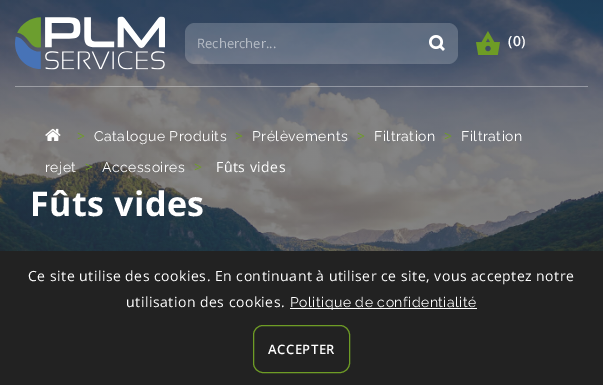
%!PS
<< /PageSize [603 385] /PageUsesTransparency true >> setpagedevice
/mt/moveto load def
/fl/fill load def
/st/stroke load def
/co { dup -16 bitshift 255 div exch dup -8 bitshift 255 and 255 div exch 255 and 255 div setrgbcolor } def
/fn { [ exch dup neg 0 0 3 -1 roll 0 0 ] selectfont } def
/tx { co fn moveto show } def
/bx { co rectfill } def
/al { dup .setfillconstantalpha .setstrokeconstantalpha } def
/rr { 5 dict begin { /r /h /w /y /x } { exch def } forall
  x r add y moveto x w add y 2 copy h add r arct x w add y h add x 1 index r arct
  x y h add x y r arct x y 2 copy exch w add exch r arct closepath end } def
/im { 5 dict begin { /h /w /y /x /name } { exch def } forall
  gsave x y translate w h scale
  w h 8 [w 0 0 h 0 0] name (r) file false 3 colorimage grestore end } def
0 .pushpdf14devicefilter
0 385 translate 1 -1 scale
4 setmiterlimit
0 0 603 385 16#FFFFFF bx
(media/1.raw) 0 0 603 251 im
0.35 al
15 86 573 1 16#FFFFFF bx
1 al
(media/2.raw) 15 16 150 54 im
0.2 al
185 23 273 41 10 rr fl
1 al
(media/3.raw) 429 35 16 16 im
(media/4.raw) 476 31 24 24 im
(media/5.raw) 45 128 16 13 im
0 251 603 134 16#222222 bx
290 308 187 1 16#FFFFFF bx
16#6E9C25 co
253.5 325.5 96 47 9.5 rr st
(Rechercher...) 197 48 /OpenSans-Regular 13 16#B7BDC6 tx
/OpenSans-SemiBold 14 fn
16#FFFFFF co
508 46 mt .5 0 (\(0\)) ashow
/OpenSans-Regular 14 fn
16#6E9C25 co
77 141 mt .5 0 (>) ashow
/Raleway-Regular 14 fn
16#FFFFFF co
94 141 mt .5 0 (Catalogue Produits) ashow
/OpenSans-Regular 14 fn
16#6E9C25 co
235 141 mt .5 0 (>) ashow
/Raleway-Regular 14 fn
16#FFFFFF co
252 141 mt .5 0 (Prélèvements) ashow
/OpenSans-Regular 14 fn
16#6E9C25 co
357 141 mt .5 0 (>) ashow
/Raleway-Regular 14 fn
16#FFFFFF co
374 141 mt .5 0 (Filtration) ashow
/OpenSans-Regular 14 fn
16#6E9C25 co
444 141 mt .5 0 (>) ashow
/Raleway-Regular 14 fn
16#FFFFFF co
461 141 mt .5 0 (Filtration) ashow
45 172 mt .5 0 (rejet) ashow
/OpenSans-Regular 14 fn
16#6E9C25 co
85 172 mt .5 0 (>) ashow
/Raleway-Regular 14 fn
16#FFFFFF co
102 172 mt .5 0 (Accessoires) ashow
/OpenSans-Regular 14 fn
16#6E9C25 co
194 172 mt .5 0 (>) ashow
16#FFFFFF co
216 172 mt .5 0 (Fûts vides) ashow
/OpenSans-Bold 34 fn
30 216 mt .5 0 (Fûts vides) ashow
/OpenSans-Regular 14 fn
28 281 mt .5 0 (Ce site utilise des cookies. En continuant à utiliser ce site, vous acceptez notre) ashow
126 307 mt .5 0 (utilisation des cookies.) ashow
/Raleway-Regular 14 fn
290 307 mt .5 0 (Politique de confidentialité) ashow
/OpenSans-SemiBold 13 fn
268 354 mt .5 0 (ACCEPTER) ashow
.poppdf14devicefilter showpage
